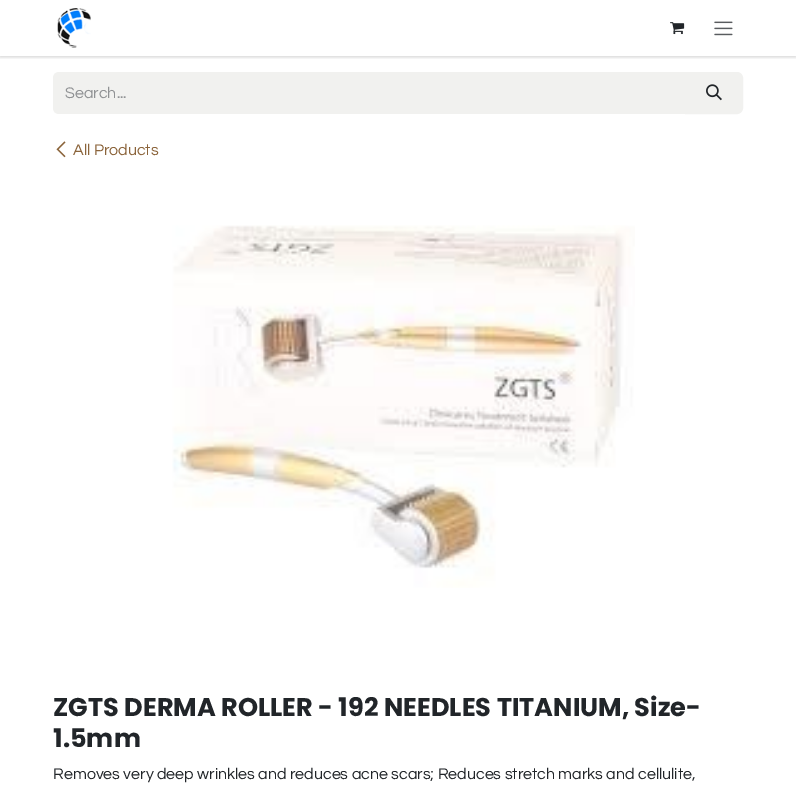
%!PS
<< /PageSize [796 789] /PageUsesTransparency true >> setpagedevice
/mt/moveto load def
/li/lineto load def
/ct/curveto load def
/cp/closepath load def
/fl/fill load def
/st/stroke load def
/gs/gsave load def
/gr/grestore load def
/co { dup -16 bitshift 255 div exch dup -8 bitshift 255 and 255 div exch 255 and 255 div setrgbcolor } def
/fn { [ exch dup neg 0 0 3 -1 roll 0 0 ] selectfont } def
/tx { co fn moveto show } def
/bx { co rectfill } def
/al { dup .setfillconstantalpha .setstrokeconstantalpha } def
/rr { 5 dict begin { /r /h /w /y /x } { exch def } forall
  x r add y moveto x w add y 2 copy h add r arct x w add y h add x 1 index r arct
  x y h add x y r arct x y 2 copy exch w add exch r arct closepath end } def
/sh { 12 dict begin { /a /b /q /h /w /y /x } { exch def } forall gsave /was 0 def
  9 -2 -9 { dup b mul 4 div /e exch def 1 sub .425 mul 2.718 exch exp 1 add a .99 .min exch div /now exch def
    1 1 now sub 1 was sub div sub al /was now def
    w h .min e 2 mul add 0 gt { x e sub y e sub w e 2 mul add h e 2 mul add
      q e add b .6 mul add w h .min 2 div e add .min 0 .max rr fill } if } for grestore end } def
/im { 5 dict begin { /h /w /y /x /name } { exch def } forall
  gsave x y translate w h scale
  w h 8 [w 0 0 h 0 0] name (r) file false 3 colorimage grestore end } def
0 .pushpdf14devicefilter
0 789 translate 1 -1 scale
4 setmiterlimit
0 0 796 789 16#FFFFFF bx
gs
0 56 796 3 rectclip
16#000000 co
0 0 796 56 0 2.5 .25 sh
gr
(media/1.raw) 57 8 34 40 im
(media/2.raw) 670 22 15 13 im
(media/3.raw) 714 21 19 15 im
16#F1F1EF co
59 72 mt 686 72 li 686 114 li 59 114 li 55.5 114 53 111.5 53 108 ct 53 78 li 53 74.5 55.5 72 59 72 ct cp fl
685.5 72.5 mt 737 72.5 li 740 72.5 742.5 75 742.5 78 ct 742.5 108 li 742.5 111 740 113.5 737 113.5 ct 685.5 113.5 li cp gs fl gr
st
(media/4.raw) 706 84 16 17 im
(media/5.raw) 56 141 10 17 im
(media/6.raw) 172 225 463 363 im
(Search...) 65 98 /Questrial-Regular 16 16#909294 tx
(All Products) 73 155 /Questrial-Regular 16 16#8B643B tx
(ZGTS DERMA ROLLER - 192 NEEDLES TITANIUM, Size-) 53 716 /Poppins-Bold 25.6 16#212529 tx
(1.5mm) 53 747 /Poppins-Bold 25.6 16#212529 tx
(Removes very deep wrinkles and reduces acne scars; Reduces stretch marks and cellulite,) 53 779 /Questrial-Regular 16 16#212529 tx
.poppdf14devicefilter showpage
